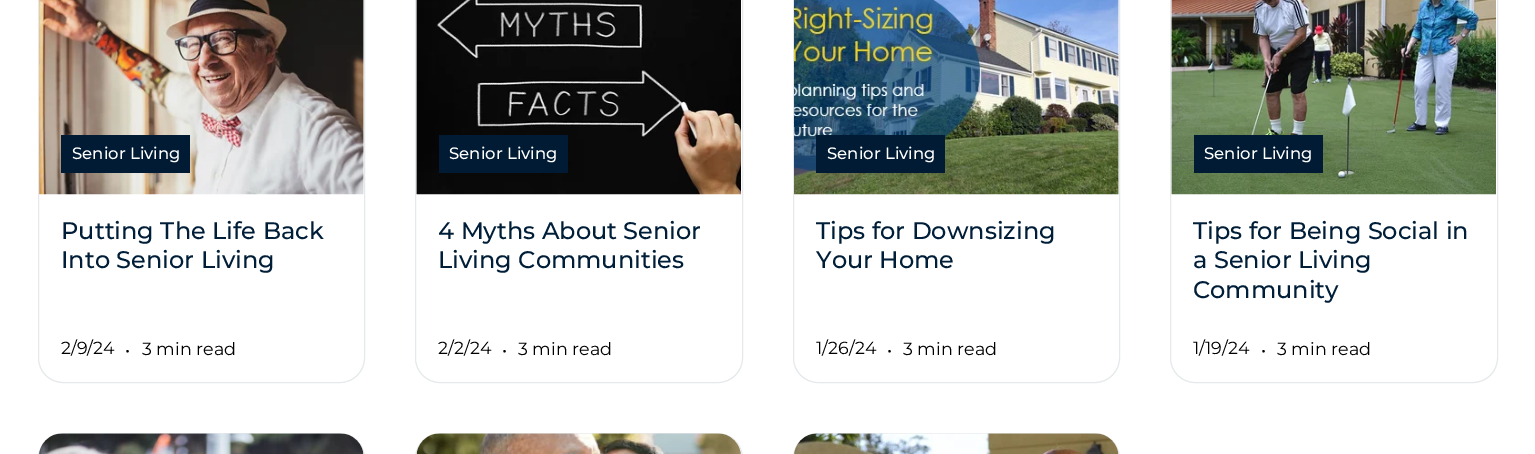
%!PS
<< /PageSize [1535 454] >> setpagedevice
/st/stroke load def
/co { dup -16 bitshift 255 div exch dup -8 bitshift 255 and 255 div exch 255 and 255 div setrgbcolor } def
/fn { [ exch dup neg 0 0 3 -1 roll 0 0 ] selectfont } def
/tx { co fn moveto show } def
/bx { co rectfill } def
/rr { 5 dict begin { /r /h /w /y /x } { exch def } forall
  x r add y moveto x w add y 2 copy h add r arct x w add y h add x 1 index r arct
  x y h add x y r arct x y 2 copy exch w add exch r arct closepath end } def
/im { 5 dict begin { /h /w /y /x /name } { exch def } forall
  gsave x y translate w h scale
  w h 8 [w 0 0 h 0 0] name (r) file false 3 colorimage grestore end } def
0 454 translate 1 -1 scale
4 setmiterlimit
0 0 1535 454 16#FFFFFF bx
16#E5E9EB co
38.5 -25.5 326 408 24.5 rr st
(media/1.raw) 39 0 325 195 im
61 135 129 38 16#001B33 bx
16#E5E9EB co
415.5 -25.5 327 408 24.5 rr st
(media/2.raw) 416 0 325 195 im
439 135 129 38 16#001B33 bx
16#E5E9EB co
793.5 -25.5 326 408 24.5 rr st
(media/3.raw) 794 0 325 195 im
816 135 129 38 16#001B33 bx
16#E5E9EB co
1170.5 -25.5 327 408 24.5 rr st
(media/4.raw) 1171 0 325 195 im
1194 135 129 38 16#001B33 bx
16#E5E9EB co
38.5 433.5 326 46 24.5 rr st
(media/5.raw) 39 433 325 21 im
415.5 433.5 327 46 24.5 rr st
(media/6.raw) 416 433 325 21 im
793.5 433.5 326 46 24.5 rr st
(media/7.raw) 794 433 325 21 im
(Senior Living) 72 159 /Montserrat-Medium 16.5 16#FFFFFF tx
(Putting The Life Back) 61 239 /Montserrat-Medium 24 16#001E38 tx
(Into Senior Living) 61 268 /Montserrat-Medium 24 16#001E38 tx
(2/9/24) 61 354 /Montserrat-Regular 17.5 16#000000 tx
(•) 125 356 /Montserrat-Regular 17.5 16#000000 tx
(3 min read) 142 355 /Montserrat-Regular 17.5 16#000000 tx
(Senior Living) 449 159 /Montserrat-Medium 16.5 16#FFFFFF tx
(4 Myths About Senior) 438 239 /Montserrat-Medium 24 16#001E38 tx
(Living Communities) 438 268 /Montserrat-Medium 24 16#001E38 tx
(2/2/24) 438 354 /Montserrat-Regular 17.5 16#000000 tx
(•) 502 356 /Montserrat-Regular 17.5 16#000000 tx
(3 min read) 518 355 /Montserrat-Regular 17.5 16#000000 tx
(Senior Living) 827 159 /Montserrat-Medium 16.5 16#FFFFFF tx
(Tips for Downsizing) 816 239 /Montserrat-Medium 24 16#001E38 tx
(Your Home) 816 268 /Montserrat-Medium 24 16#001E38 tx
(1/26/24) 816 354 /Montserrat-Regular 17.5 16#000000 tx
(•) 887 356 /Montserrat-Regular 17.5 16#000000 tx
(3 min read) 903 355 /Montserrat-Regular 17.5 16#000000 tx
(Senior Living) 1204 159 /Montserrat-Medium 16.5 16#FFFFFF tx
(Tips for Being Social in) 1193 239 /Montserrat-Medium 24 16#001E38 tx
(a Senior Living) 1193 268 /Montserrat-Medium 24 16#001E38 tx
(Community) 1193 298 /Montserrat-Medium 24 16#001E38 tx
(1/19/24) 1193 354 /Montserrat-Regular 17.5 16#000000 tx
(•) 1261 356 /Montserrat-Regular 17.5 16#000000 tx
(3 min read) 1277 355 /Montserrat-Regular 17.5 16#000000 tx
showpage
